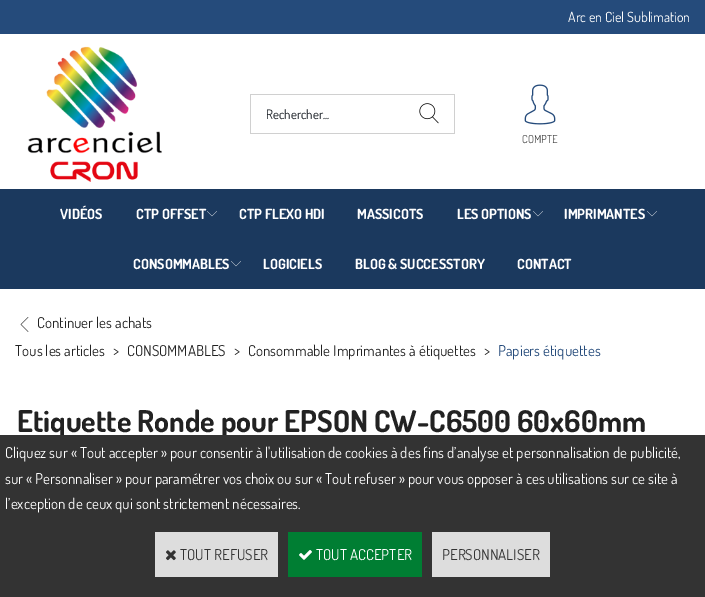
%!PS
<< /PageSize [705 597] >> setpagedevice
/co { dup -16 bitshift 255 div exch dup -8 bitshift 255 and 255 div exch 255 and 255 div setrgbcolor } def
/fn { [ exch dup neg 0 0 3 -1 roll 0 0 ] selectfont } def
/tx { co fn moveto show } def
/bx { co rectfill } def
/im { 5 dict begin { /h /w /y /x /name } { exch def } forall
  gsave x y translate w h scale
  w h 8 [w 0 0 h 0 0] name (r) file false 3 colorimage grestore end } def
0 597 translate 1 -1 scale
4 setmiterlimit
0 0 705 597 16#FFFFFF bx
0 0 705 34 16#254B7B bx
(media/1.raw) 27 46 135 136 im
250 94 205 1 16#D0D0D0 bx
250 133 154 1 16#D0D0D0 bx
250 94 1 40 16#D0D0D0 bx
454 94 1 40 16#D0D0D0 bx
404 133 51 1 16#D0D0D0 bx
(media/2.raw) 419 103 20 21 im
(media/3.raw) 524 84 32 41 im
0 189 705 100 16#1B395E bx
(media/4.raw) 207 211 10 6 im
(media/4.raw) 533 211 10 6 im
(media/4.raw) 647 211 10 6 im
(media/4.raw) 231 261 10 6 im
(media/5.raw) 20 317 9 15 im
(Arc en Ciel Sublimation) 568 22 /Dosis-Regular 14 16#FFFFFF tx
(Rechercher...) 266 119 /Dosis-Regular 13 16#1A1F26 tx
(COMPTE) 522 143 /Dosis-Light 11 16#222222 tx
(VIDÉOS) 60 219 /Dosis-Bold 14 16#FFFFFF tx
(CTP OFFSET) 136 219 /Dosis-Bold 14 16#FFFFFF tx
(CTP FLEXO HDI) 239 219 /Dosis-Bold 14 16#FFFFFF tx
(MASSICOTS) 357 219 /Dosis-Bold 14 16#FFFFFF tx
(LES OPTIONS) 457 219 /Dosis-Bold 14 16#FFFFFF tx
(IMPRIMANTES) 564 219 /Dosis-Bold 14 16#FFFFFF tx
(CONSOMMABLES) 133 269 /Dosis-Bold 14 16#FFFFFF tx
(LOGICIELS) 263 269 /Dosis-Bold 14 16#FFFFFF tx
(BLOG & SUCCESSTORY) 355 269 /Dosis-Bold 14 16#FFFFFF tx
(CONTACT) 517 269 /Dosis-Bold 14 16#FFFFFF tx
(Continuer les achats) 37 328 /Dosis-Regular 15 16#222222 tx
(Tous les articles) 15 356 /Dosis-Regular 15 16#222222 tx
(>) 113 356 /Dosis-Regular 15 16#222222 tx
(CONSOMMABLES) 127 356 /Dosis-Regular 15 16#222222 tx
(>) 234 356 /Dosis-Regular 15 16#222222 tx
(Consommable Imprimantes à étiquettes) 248 356 /Dosis-Regular 15 16#222222 tx
(>) 484 356 /Dosis-Regular 15 16#222222 tx
(Papiers étiquettes) 498 356 /Dosis-Regular 15 16#254B7B tx
(Etiquette Ronde pour EPSON CW-C6500 60x60mm) 17 432 /Dosis-Bold 30 16#222222 tx
0 435 705 162 16#333333 bx
(Cliquez sur « Tout accepter » pour consentir à l'utilisation de cookies à des fins d’analyse et personnalisation de publicité,) 5 458 /Dosis-Regular 15 16#FFFFFF tx
(sur « Personnaliser » pour paramétrer vos choix ou sur « Tout refuser » pour vous opposer à ces utilisations sur ce site à) 5 484 /Dosis-Regular 15 16#FFFFFF tx
(l’exception de ceux qui sont strictement nécessaires.) 5 509 /Dosis-Regular 15 16#FFFFFF tx
155 532 123 45 16#DDDDDD bx
(media/6.raw) 166 550 10 11 im
(TOUT REFUSER) 180 560 /Dosis-Regular 15 16#333333 tx
288 532 134 45 16#007E33 bx
(media/7.raw) 299 550 13 10 im
(TOUT ACCEPTER) 316 560 /Dosis-Regular 15 16#FFFFFF tx
432 532 118 45 16#DDDDDD bx
(PERSONNALISER) 442 560 /Dosis-Regular 15 16#333333 tx
showpage
